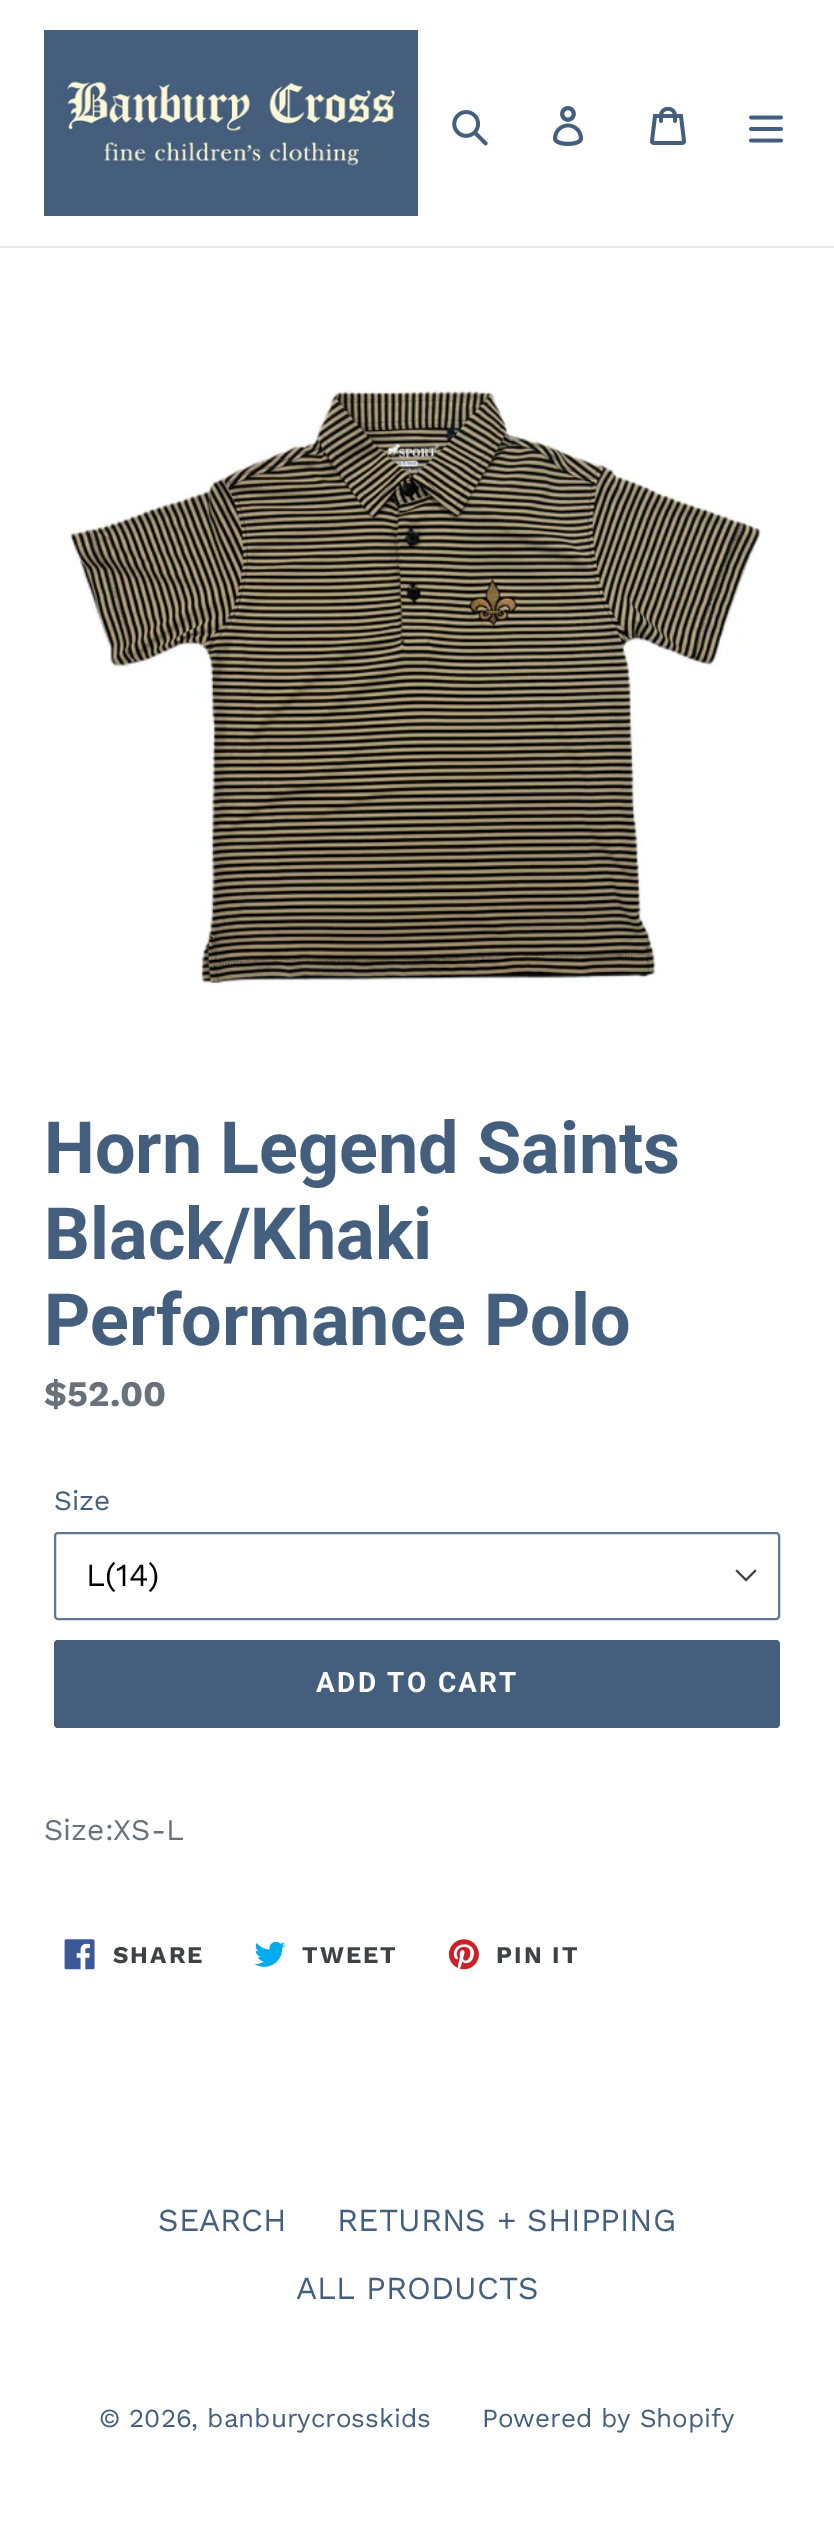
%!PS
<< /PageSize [834 2535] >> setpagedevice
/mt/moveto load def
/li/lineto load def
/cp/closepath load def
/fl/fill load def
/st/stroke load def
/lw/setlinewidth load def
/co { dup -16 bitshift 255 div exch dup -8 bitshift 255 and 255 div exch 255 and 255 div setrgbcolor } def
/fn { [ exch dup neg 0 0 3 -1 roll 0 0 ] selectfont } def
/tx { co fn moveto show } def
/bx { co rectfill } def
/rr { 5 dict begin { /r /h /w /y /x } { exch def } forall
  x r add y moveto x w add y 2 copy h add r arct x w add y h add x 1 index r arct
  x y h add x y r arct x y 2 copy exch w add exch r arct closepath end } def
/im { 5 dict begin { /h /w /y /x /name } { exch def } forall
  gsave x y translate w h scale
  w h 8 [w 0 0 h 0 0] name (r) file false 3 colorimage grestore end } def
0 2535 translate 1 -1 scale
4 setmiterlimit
0 0 834 2535 16#FFFFFF bx
0 246 834 2 16#E8E9EB bx
(media/1.raw) 44 30 374 186 im
(media/2.raw) 452 110 36 36 im
(media/3.raw) 553 106 31 40 im
(media/4.raw) 650 106 36 39 im
(media/5.raw) 749 115 34 28 im
(media/6.raw) 69 387 692 600 im
16#3D4246 co
746 1581.5 mt 735.5 1571 li 737 1569.5 li 746 1578.5 li 755 1569.5 li 756.5 1571 li cp fl
16#607691 co
2 lw
55 1533 724 86 3 rr st
16#445E7D co
54 1640 726 88 4 rr fl
(media/7.raw) 64 1939 31 31 im
(media/8.raw) 254 1941 32 26 im
(media/9.raw) 448 1939 31 31 im
(Horn Legend Saints) 44 1173 /Roboto-Bold 72 16#445E7D tx
(Black/Khaki) 44 1259 /Roboto-Bold 72 16#445E7D tx
(Performance Polo) 44 1345 /Roboto-Bold 72 16#445E7D tx
($52.00) 44 1406 /WorkSans-Bold 36 16#69727B tx
(Size) 54 1510 /WorkSans-Regular 28 16#445E7D tx
(L\(14\)) 86 1586 /WorkSans-Regular 32 16#000000 tx
/Roboto-Bold 28 fn
16#FFFFFF co
316 1692 mt 2.25 0 (ADD TO CART) ashow
(Size:XS-L) 44 1840 /WorkSans-Regular 30 16#69727B tx
/WorkSans-Bold 24 fn
16#3D4246 co
113 1963 mt 2 0 (SHARE) ashow
302 1963 mt 2 0 (TWEET) ashow
496 1963 mt 2 0 (PIN IT) ashow
(SEARCH) 158 2231 /WorkSans-Regular 32 16#445E7D tx
(RETURNS + SHIPPING) 337 2231 /WorkSans-Regular 32 16#445E7D tx
(ALL PRODUCTS) 296 2299 /WorkSans-Regular 32 16#445E7D tx
(© 2026, banburycrosskids) 99 2427 /WorkSans-Regular 26 16#445E7D tx
(Powered by Shopify) 482 2427 /WorkSans-Regular 26 16#445E7D tx
showpage
